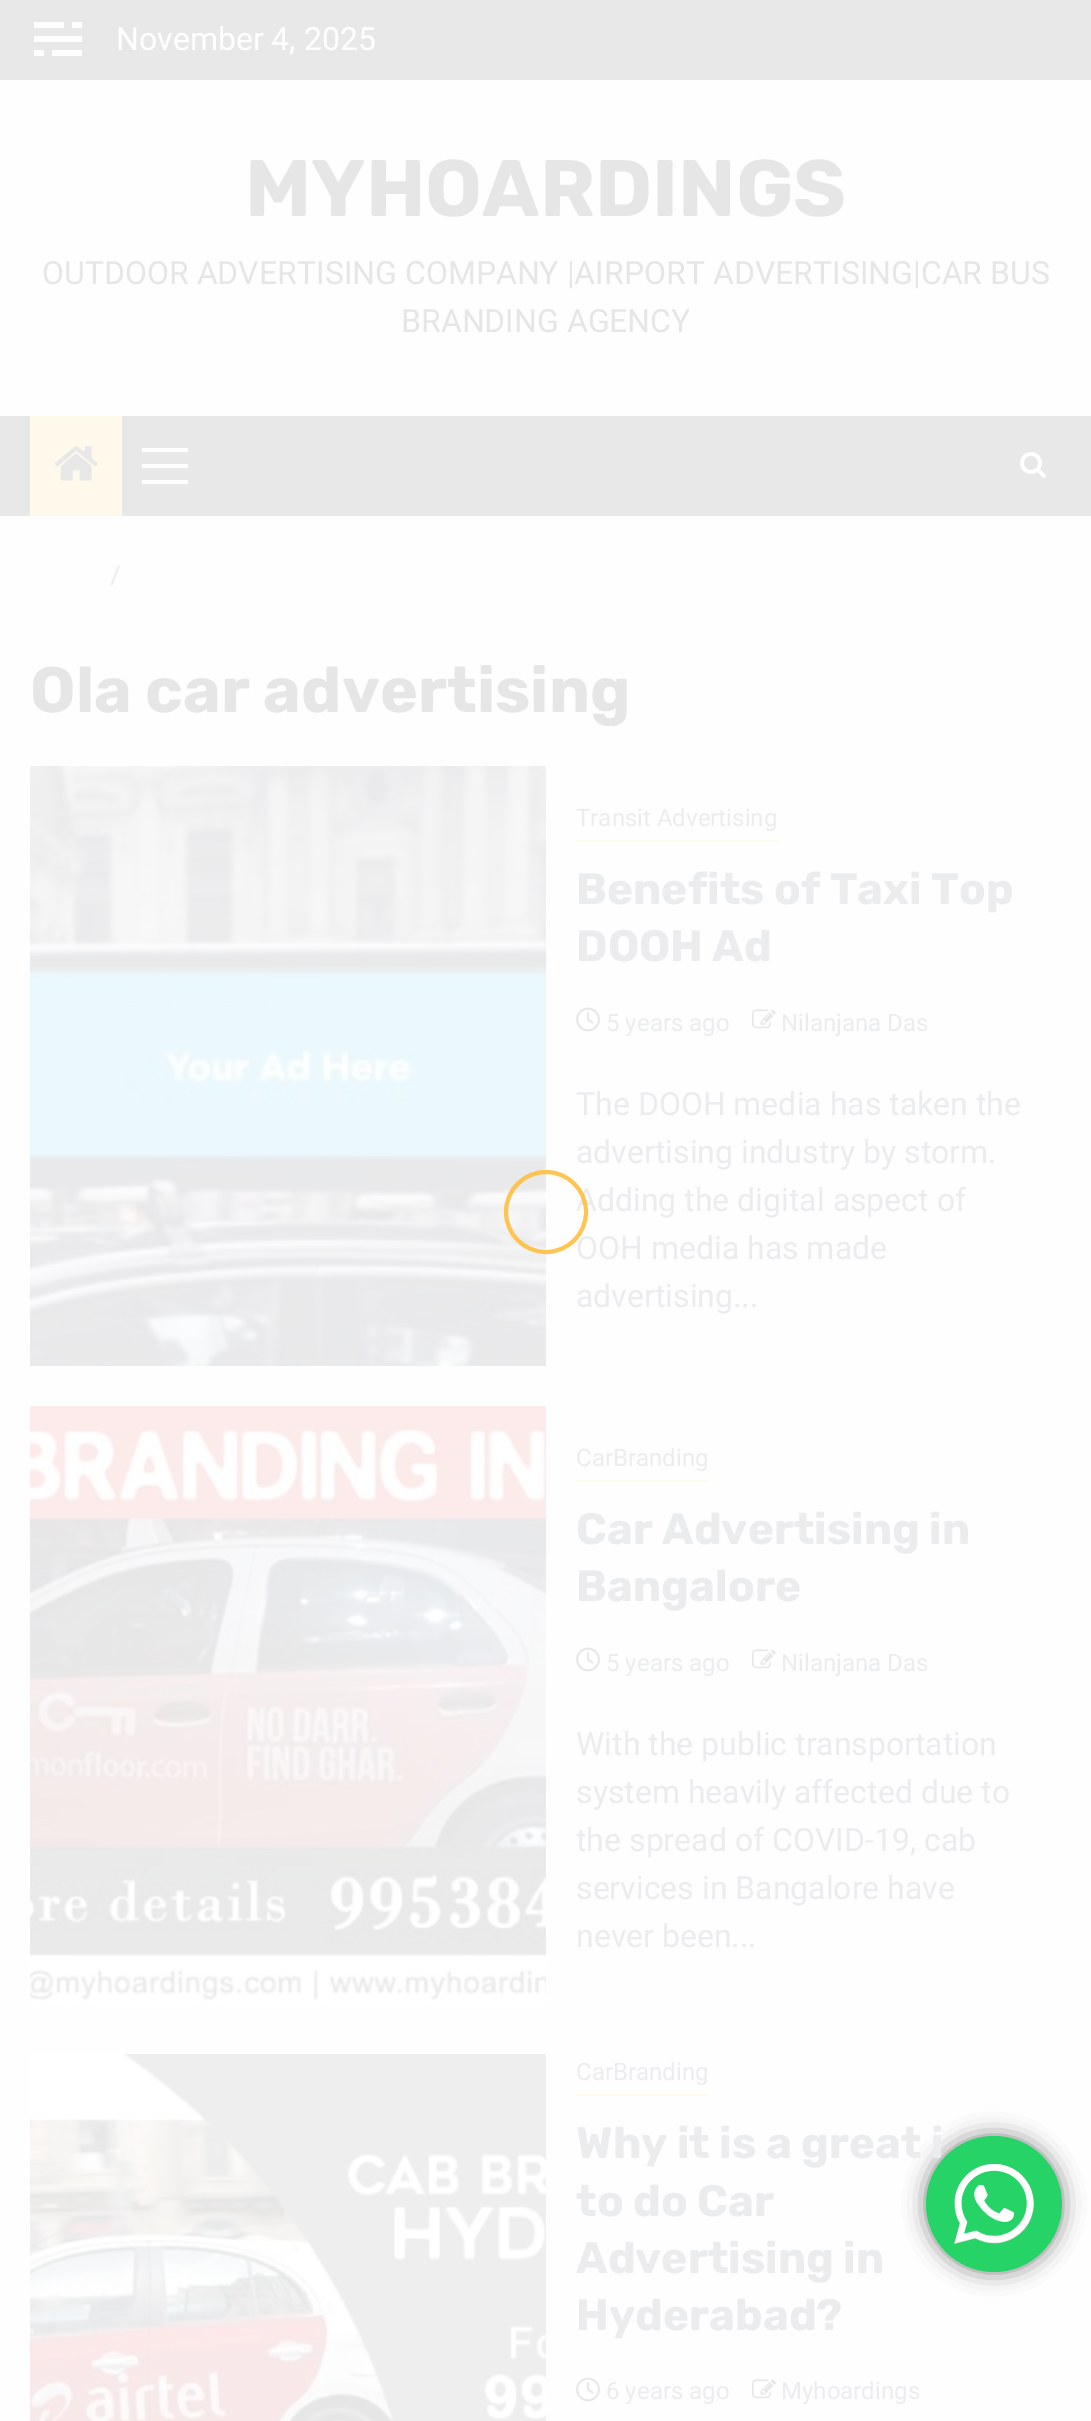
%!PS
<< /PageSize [1091 2421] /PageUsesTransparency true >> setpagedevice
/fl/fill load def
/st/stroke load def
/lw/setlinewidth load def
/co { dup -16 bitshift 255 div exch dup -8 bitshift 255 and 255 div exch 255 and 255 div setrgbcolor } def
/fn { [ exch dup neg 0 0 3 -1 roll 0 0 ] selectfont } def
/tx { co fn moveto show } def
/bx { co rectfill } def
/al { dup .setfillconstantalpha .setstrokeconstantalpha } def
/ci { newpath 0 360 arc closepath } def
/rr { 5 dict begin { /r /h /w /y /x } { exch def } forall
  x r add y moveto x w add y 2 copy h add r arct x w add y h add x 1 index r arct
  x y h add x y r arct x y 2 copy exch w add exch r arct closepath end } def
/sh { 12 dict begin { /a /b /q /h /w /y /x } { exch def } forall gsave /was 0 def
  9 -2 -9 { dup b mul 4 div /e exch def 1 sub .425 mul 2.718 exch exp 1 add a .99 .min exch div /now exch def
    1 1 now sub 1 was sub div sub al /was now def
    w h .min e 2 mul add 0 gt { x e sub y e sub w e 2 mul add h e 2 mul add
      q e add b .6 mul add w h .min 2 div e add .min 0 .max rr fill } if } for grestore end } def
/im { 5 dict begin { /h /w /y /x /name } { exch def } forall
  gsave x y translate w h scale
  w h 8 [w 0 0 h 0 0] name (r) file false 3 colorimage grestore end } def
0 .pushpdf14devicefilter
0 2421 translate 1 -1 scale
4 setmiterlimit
0 0 1091 2421 16#FEFEFE bx
0 0 1091 80 16#E8E8E8 bx
72 22 10 6 16#FFFFFF bx
34 22 30 6 16#FFFFFF bx
34 36 48 6 16#FFFFFF bx
52 50 30 6 16#FFFFFF bx
34 50 10 6 16#FFFFFF bx
0 416 1091 100 16#E8E8E8 bx
30 416 92 100 16#FFF9EC bx
(media/1.raw) 54 446 44 35 im
142 464 46 4 16#FFFFFF bx
142 448 46 4 16#FFFFFF bx
142 480 46 4 16#FFFFFF bx
(media/2.raw) 1020 452 26 26 im
(media/3.raw) 30 766 516 600 im
576 840 202 2 16#FFF9EC bx
(media/4.raw) 576 1007 24 25 im
(media/5.raw) 752 1009 24 20 im
(media/6.raw) 30 1406 516 600 im
576 1480 132 2 16#FFF9EC bx
(media/4.raw) 576 1647 24 25 im
(media/5.raw) 752 1649 24 20 im
(media/7.raw) 30 2054 516 367 im
576 2094 132 2 16#FFF9EC bx
(media/4.raw) 576 2377 24 25 im
(media/5.raw) 752 2379 24 20 im
16#000000 co
926 2136 136 136 68 11 .5 sh
(November 4, 2025) 116 50 /Roboto-Regular 32 16#FFFFFF tx
(MYHOARDINGS) 245 216 /Rubik-Bold 80 16#E6E6E6 tx
(OUTDOOR ADVERTISING COMPANY |AIRPORT ADVERTISING|CAR BUS) 42 284 /Roboto-Regular 32 16#E6E6E6 tx
(BRANDING AGENCY) 401 332 /Roboto-Regular 32 16#E6E6E6 tx
(/) 110 584 /Roboto-Regular 26 16#EBECED tx
(Ola car advertising) 30 712 /Rubik-Bold 64 16#E6E6E6 tx
(Transit Advertising) 576 826 /Roboto-Regular 24 16#EBECED tx
(Benefits of Taxi Top) 576 904 /Rubik-Bold 44 16#EBECED tx
(DOOH Ad) 576 961 /Rubik-Bold 44 16#EBECED tx
(5 years ago) 606 1031 /Roboto-Regular 24 16#EBECED tx
(Nilanjana Das) 781 1031 /Roboto-Regular 24 16#EBECED tx
(The DOOH media has taken the) 576 1115 /Roboto-Regular 32 16#EBECED tx
(advertising industry by storm.) 576 1163 /Roboto-Regular 32 16#EBECED tx
(Adding the digital aspect of) 576 1211 /Roboto-Regular 32 16#EBECED tx
(OOH media has made) 576 1259 /Roboto-Regular 32 16#EBECED tx
(advertising...) 576 1307 /Roboto-Regular 32 16#EBECED tx
(CarBranding) 576 1466 /Roboto-Regular 24 16#EBECED tx
(Car Advertising in) 576 1544 /Rubik-Bold 44 16#EBECED tx
(Bangalore) 576 1601 /Rubik-Bold 44 16#EBECED tx
(5 years ago) 606 1671 /Roboto-Regular 24 16#EBECED tx
(Nilanjana Das) 781 1671 /Roboto-Regular 24 16#EBECED tx
(With the public transportation) 576 1755 /Roboto-Regular 32 16#EBECED tx
(system heavily affected due to) 576 1803 /Roboto-Regular 32 16#EBECED tx
(the spread of COVID-19, cab) 576 1851 /Roboto-Regular 32 16#EBECED tx
(services in Bangalore have) 576 1899 /Roboto-Regular 32 16#EBECED tx
(never been...) 576 1947 /Roboto-Regular 32 16#EBECED tx
(CarBranding) 576 2080 /Roboto-Regular 24 16#EBECED tx
(Why it is a great i) 576 2158 /Rubik-Bold 44 16#EBECED tx
(to do Car) 576 2216 /Rubik-Bold 44 16#EBECED tx
(Advertising in) 576 2273 /Rubik-Bold 44 16#EBECED tx
(Hyderabad?) 576 2330 /Rubik-Bold 44 16#EBECED tx
(6 years ago) 606 2399 /Roboto-Regular 24 16#EBECED tx
(Myhoardings) 781 2399 /Roboto-Regular 24 16#EBECED tx
16#25D366 co
994 2204 68 ci fl
(media/8.raw) 954 2164 80 80 im
0.9 al
16#FFBF3F co
4 lw
546 1212 40 ci st
.poppdf14devicefilter showpage
